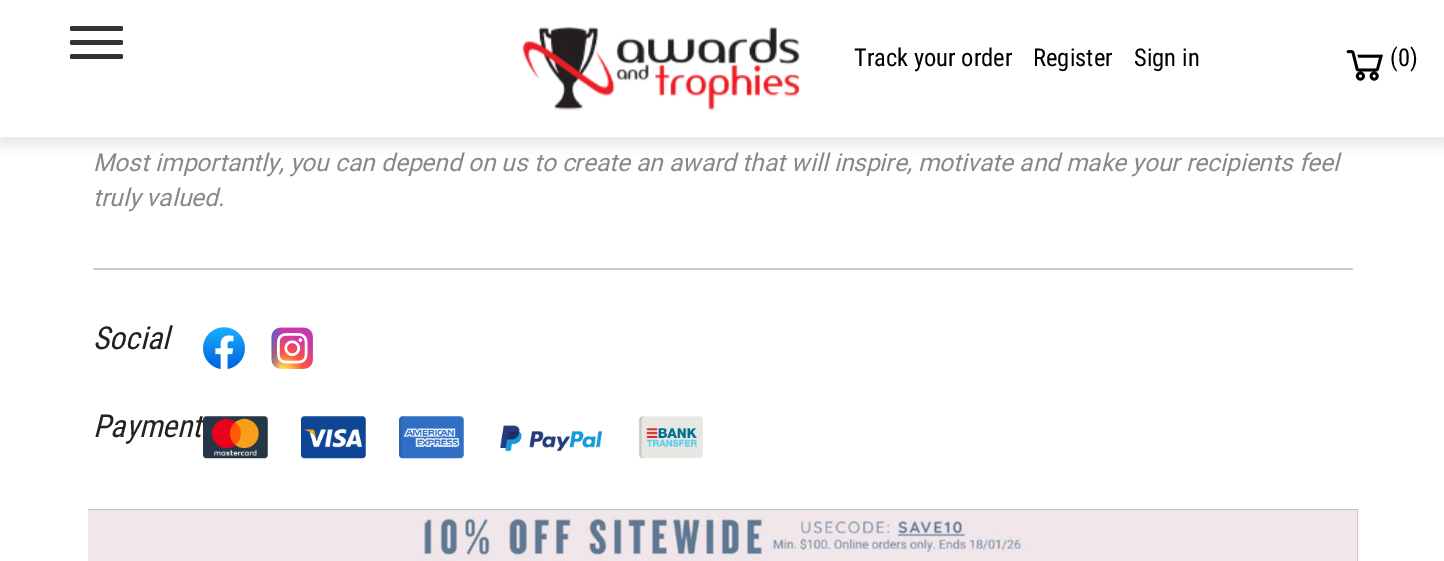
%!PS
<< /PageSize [1444 561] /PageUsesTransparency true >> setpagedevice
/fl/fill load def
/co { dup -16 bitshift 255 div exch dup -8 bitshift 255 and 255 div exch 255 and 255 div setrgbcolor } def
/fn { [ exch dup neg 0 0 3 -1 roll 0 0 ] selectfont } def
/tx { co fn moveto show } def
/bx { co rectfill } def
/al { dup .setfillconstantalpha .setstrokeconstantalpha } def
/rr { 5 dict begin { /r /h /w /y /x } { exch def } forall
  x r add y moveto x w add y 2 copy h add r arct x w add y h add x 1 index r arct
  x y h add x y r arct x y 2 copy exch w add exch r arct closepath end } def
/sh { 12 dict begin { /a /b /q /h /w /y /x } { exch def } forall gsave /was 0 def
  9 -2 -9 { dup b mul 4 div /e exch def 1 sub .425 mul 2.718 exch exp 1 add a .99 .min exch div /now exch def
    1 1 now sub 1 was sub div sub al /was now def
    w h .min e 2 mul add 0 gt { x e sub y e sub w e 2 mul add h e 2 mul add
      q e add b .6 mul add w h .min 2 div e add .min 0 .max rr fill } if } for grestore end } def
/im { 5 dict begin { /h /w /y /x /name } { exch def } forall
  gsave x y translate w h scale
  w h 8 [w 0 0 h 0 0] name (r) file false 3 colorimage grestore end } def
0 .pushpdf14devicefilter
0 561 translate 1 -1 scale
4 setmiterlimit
0 0 1444 561 16#FFFFFF bx
16#000000 co
0 7 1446 138 0 7 .1 sh
0 0 1444 137 16#FFFFFF bx
16#333333 co
70 26 53 5 2 rr fl
70 40 53 5 2 rr fl
70 54 53 5 2 rr fl
(media/1.raw) 522 27 278 84 im
(media/2.raw) 1346 50 37 31 im
93 268 1260 2 16#CCCCCC bx
(media/3.raw) 203 327 42 42 im
(media/4.raw) 271 327 42 42 im
(media/6.raw) 301 416 65 43 im
(media/7.raw) 399 416 65 43 im
(media/8.raw) 500 425 103 26 im
(media/9.raw) 638 416 65 43 im
88 509 1270 52 16#5F7994 bx
(media/10.raw) 88 509 1271 52 im
(Track your order) 854 66 /RobotoCondensed-Regular 24.5 16#000000 tx
(Register) 1033 66 /RobotoCondensed-Regular 24.5 16#000000 tx
(Sign in) 1134 66 /RobotoCondensed-Regular 24.5 16#000000 tx
(\(0\)) 1390 66 /RobotoCondensed-Regular 24.5 16#000000 tx
(Most importantly, you can depend on us to create an award that will inspire, motivate and make your recipients feel) 93 171 /Roboto-Italic 24.5 16#888888 tx
(truly valued.) 93 206 /Roboto-Italic 24.5 16#888888 tx
(Social) 93 349 /RobotoCondensed-Italic 31.5 16#222222 tx
(Payment) 93 437 /RobotoCondensed-Italic 31.5 16#222222 tx
(media/5.raw) 203 416 65 43 im
.poppdf14devicefilter showpage
